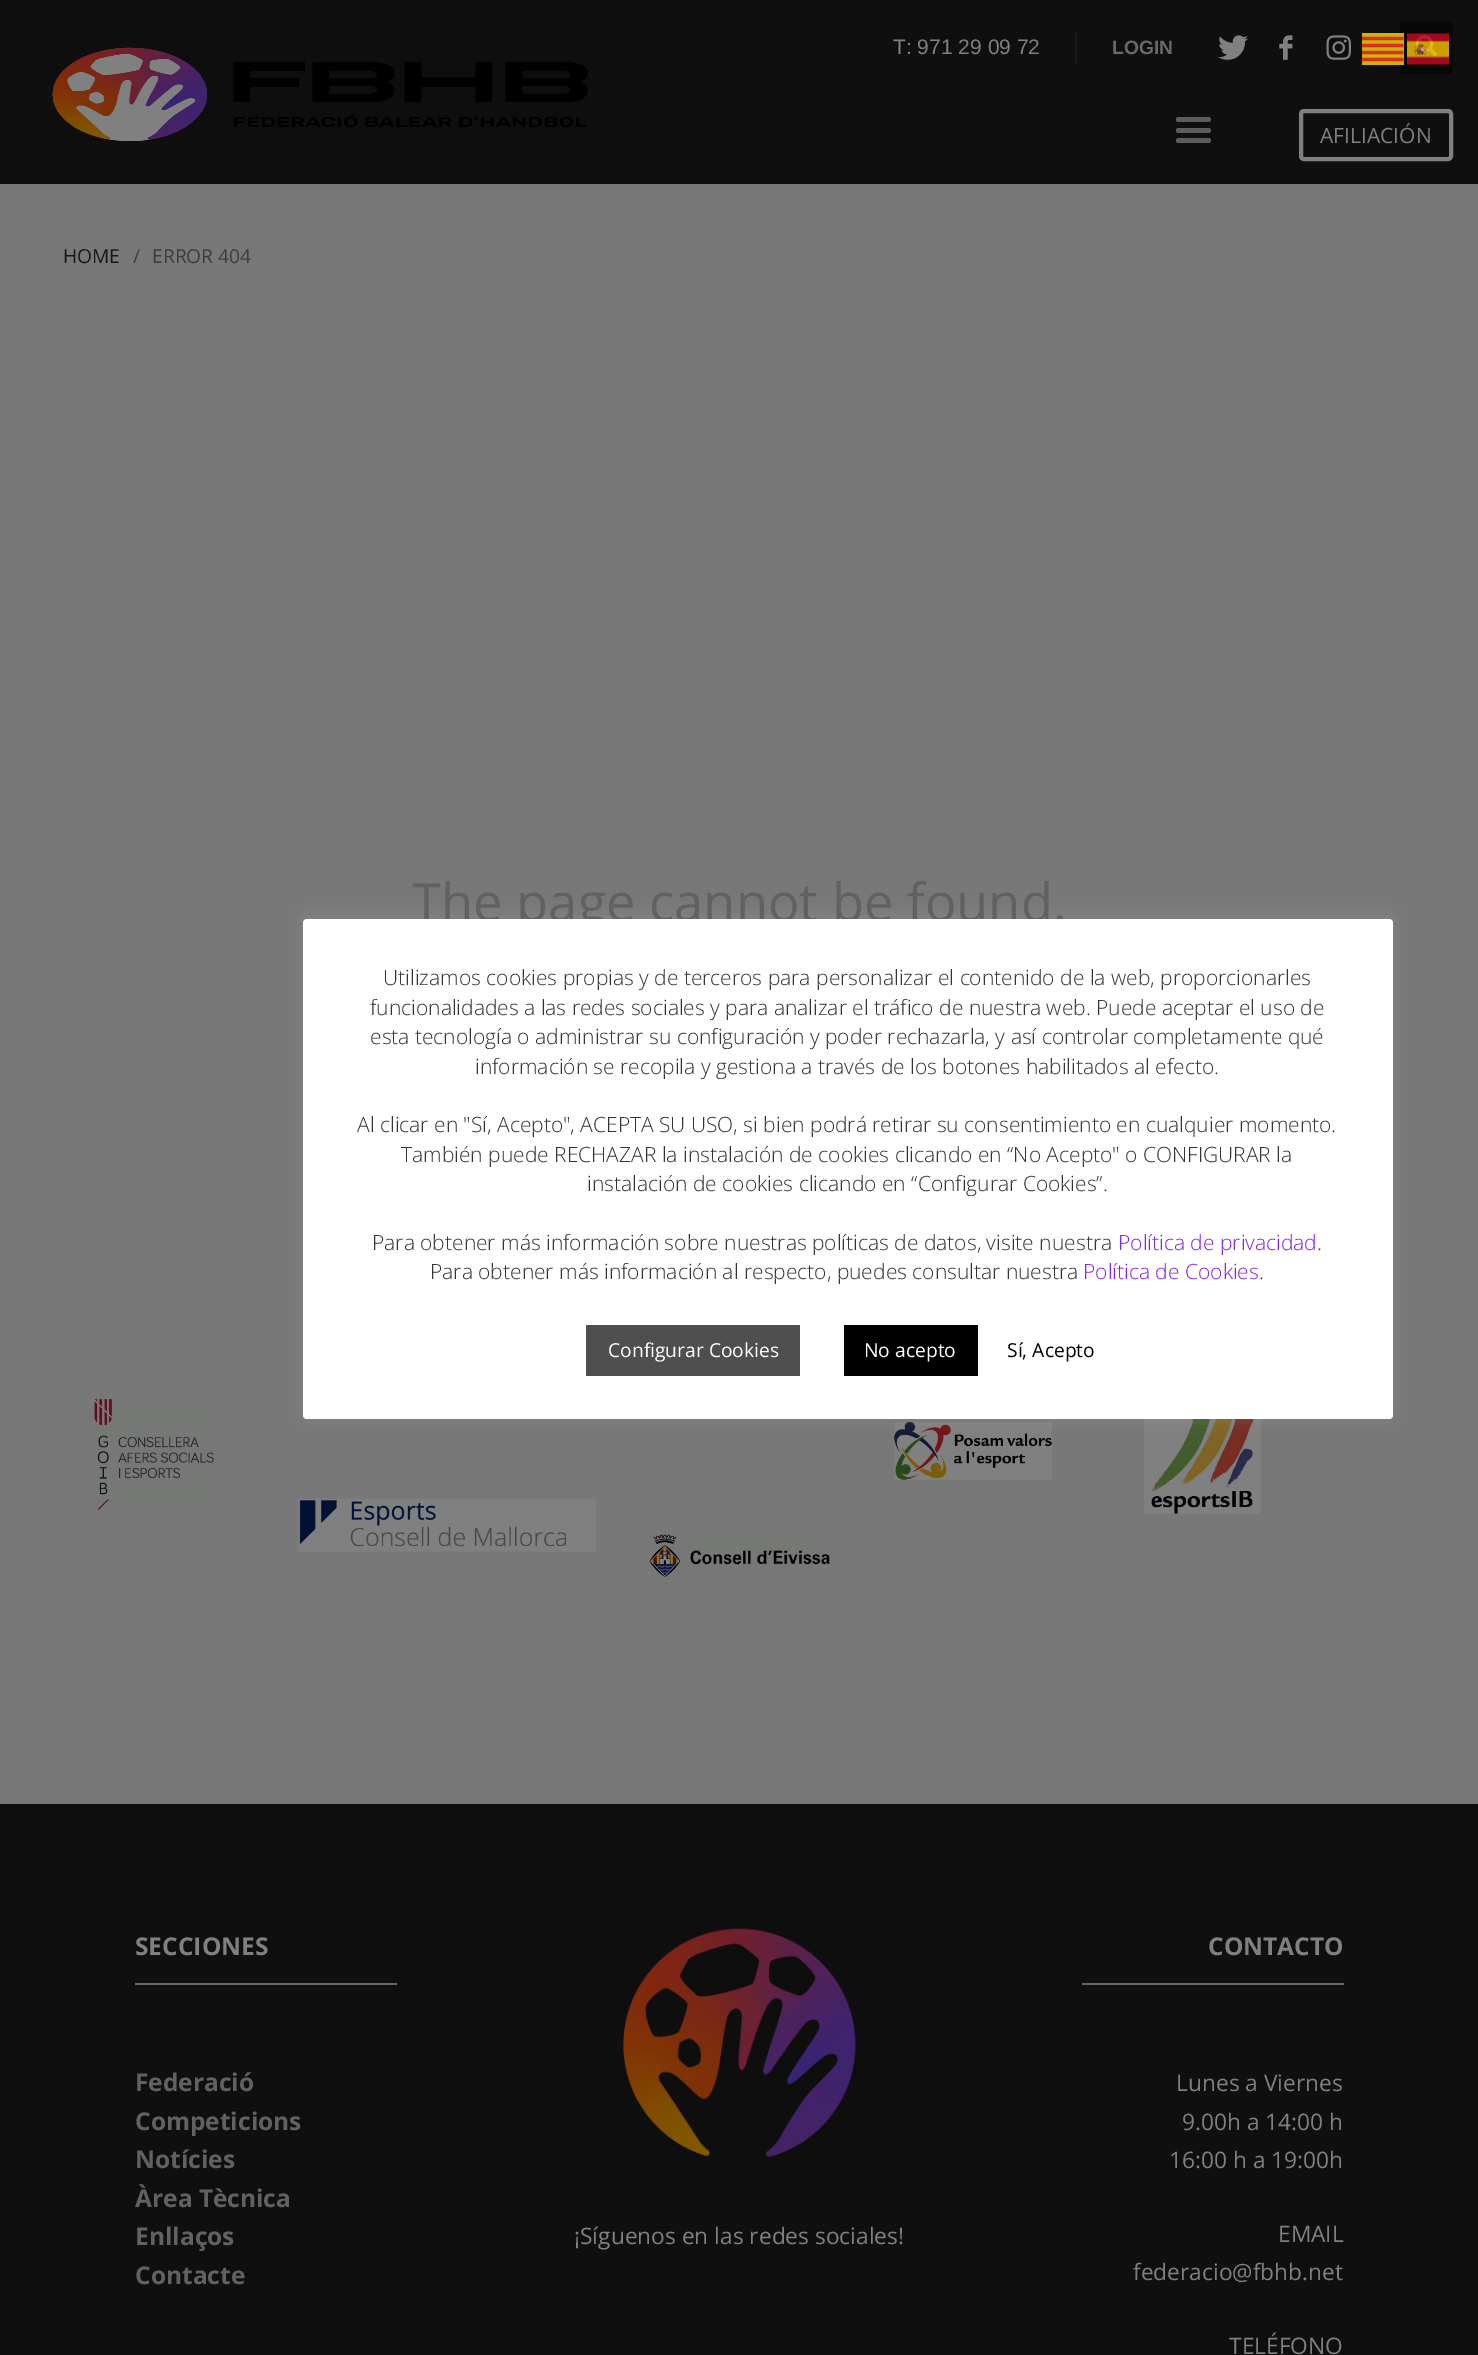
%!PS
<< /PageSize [1478 2355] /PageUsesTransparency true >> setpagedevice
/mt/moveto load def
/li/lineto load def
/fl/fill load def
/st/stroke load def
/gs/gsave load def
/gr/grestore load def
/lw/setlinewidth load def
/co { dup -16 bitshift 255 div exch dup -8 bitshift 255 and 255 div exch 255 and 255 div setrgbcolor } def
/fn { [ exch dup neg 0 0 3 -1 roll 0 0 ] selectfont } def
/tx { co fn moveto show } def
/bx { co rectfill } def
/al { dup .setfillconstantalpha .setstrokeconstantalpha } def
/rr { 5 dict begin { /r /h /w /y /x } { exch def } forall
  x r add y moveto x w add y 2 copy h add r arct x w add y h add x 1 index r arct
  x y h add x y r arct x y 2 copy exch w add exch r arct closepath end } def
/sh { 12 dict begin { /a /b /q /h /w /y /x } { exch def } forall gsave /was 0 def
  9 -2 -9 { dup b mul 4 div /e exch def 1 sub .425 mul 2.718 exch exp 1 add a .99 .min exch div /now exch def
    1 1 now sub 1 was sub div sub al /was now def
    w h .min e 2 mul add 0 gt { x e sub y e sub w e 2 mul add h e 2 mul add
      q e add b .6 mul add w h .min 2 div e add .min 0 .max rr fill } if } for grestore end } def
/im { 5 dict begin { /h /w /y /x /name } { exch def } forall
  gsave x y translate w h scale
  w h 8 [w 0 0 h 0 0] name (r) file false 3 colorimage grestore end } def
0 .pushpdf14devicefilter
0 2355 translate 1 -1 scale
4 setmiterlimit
0 0 1478 2355 16#777877 bx
0 0 1478 184 16#0F0F0F bx
1362 33 38 32 16#CDB40A bx
16#080808 co
1400 21 53 53 4 rr fl
1400 33 4 32 16#CBB209 bx
gs
1362 33 42 32 rectclip
16#D73217 co
3.3 lw
1361.5 38.5 mt 1403.5 38.5 li 1403.5 45.5 mt 1361.5 45.5 li 1361.5 52.5 mt 1403.5 52.5 li 1403.5 59.5 mt 1361.5 59.5 li st
gr
(media/6.raw) 1415 35 22 22 im
(media/1.raw) 1407 33 42 32 im
(media/2.raw) 52 47 536 94 im
1075 32 2 31 16#1A1A1A bx
(media/3.raw) 1218 35 30 25 im
(media/4.raw) 1279 35 14 25 im
(media/5.raw) 1326 35 25 25 im
16#5C5C5C co
1176 117 35 5 2.5 rr fl
1176 128 35 5 2.5 rr fl
1176 138 35 5 2.5 rr fl
16#808080 co
4 lw
1301 111 150 48 3 rr st
(media/7.raw) 94 1399 120 111 im
(media/8.raw) 894 1422 158 58 im
(media/9.raw) 1144 1419 117 95 im
(media/10.raw) 297 1498 300 54 im
(media/11.raw) 649 1534 181 43 im
0 1804 1478 551 16#0F0F0F bx
135 1983 262 2 16#666666 bx
(media/12.raw) 623 1928 233 230 im
1082 1983 262 2 16#666666 bx
16#ACABAB co
303 917 1090 501 4 9 .3 sh
(T: 971 29 09 72) 893 54 /LiberationSans-Regular 21 16#808080 tx
(LOGIN) 1112 54 /LiberationSans-Bold 19.25 16#696969 tx
(AFILIACIÓN) 1320 143 /OpenSans-Regular 21 16#808080 tx
(HOME) 63 263 /OpenSans-Regular 19.25 16#181818 tx
(/) 133 263 /OpenSans-Regular 19.25 16#3C3C3C tx
(ERROR 404) 152 263 /OpenSans-Regular 19.25 16#3C3C3C tx
(The page cannot be found.) 412 921 /OpenSans-Regular 52.5 16#606160 tx
(SECCIONES) 135 1955 /OpenSans-Bold 24.5 16#808080 tx
(Federació) 135 2091 /OpenSans-Bold 24.5 16#606160 tx
(Competicions) 135 2130 /OpenSans-Bold 24.5 16#606160 tx
(Notícies) 135 2168 /OpenSans-Bold 24.5 16#606160 tx
(Àrea Tècnica) 135 2207 /OpenSans-Bold 24.5 16#606160 tx
(Enllaços) 135 2245 /OpenSans-Bold 24.5 16#606160 tx
(Contacte) 135 2284 /OpenSans-Bold 24.5 16#606160 tx
(¡Síguenos en las redes sociales!) 574 2244 /OpenSans-Regular 22.75 16#808080 tx
(CONTACTO) 1208 1955 /OpenSans-Bold 24.5 16#808080 tx
(Lunes a Viernes) 1176 2091 /OpenSans-Regular 22.75 16#808080 tx
(9.00h a 14:00 h) 1182 2130 /OpenSans-Regular 22.75 16#808080 tx
(16:00 h a 19:00h) 1169 2168 /OpenSans-Regular 22.75 16#808080 tx
(EMAIL) 1278 2242 /OpenSans-Regular 22.75 16#808080 tx
(federacio@fbhb.net) 1133 2280 /OpenSans-Regular 22.75 16#808080 tx
(TELÉFONO) 1229 2354 /OpenSans-Regular 22.75 16#808080 tx
16#FFFFFF co
303 919 1090 500 4 rr fl
(Utilizamos cookies propias y de terceros para personalizar el contenido de la web, proporcionarles) 383 985 /OpenSans-Light 21 16#333333 tx
(funcionalidades a las redes sociales y para analizar el tráfico de nuestra web. Puede aceptar el uso de) 370 1015 /OpenSans-Light 21 16#333333 tx
(esta tecnología o administrar su configuración y poder rechazarla, y así controlar completamente qué) 370 1044 /OpenSans-Light 21 16#333333 tx
(información se recopila y gestiona a través de los botones habilitados al efecto.) 475 1074 /OpenSans-Light 21 16#333333 tx
(Al clicar en "Sí, Acepto", ACEPTA SU USO, si bien podrá retirar su consentimiento en cualquier momento.) 357 1132 /OpenSans-Light 21 16#333333 tx
(También puede RECHAZAR la instalación de cookies clicando en “No Acepto" o CONFIGURAR la) 401 1162 /OpenSans-Light 21 16#333333 tx
(instalación de cookies clicando en “Configurar Cookies”.) 587 1191 /OpenSans-Light 21 16#333333 tx
(Para obtener más información sobre nuestras políticas de datos, visite nuestra) 372 1250 /OpenSans-Light 21 16#333333 tx
(Política de privacidad) 1118 1250 /OpenSans-Light 21 16#8224E3 tx
(.) 1317 1250 /OpenSans-Light 21 16#333333 tx
(Para obtener más información al respecto, puedes consultar nuestra) 430 1279 /OpenSans-Light 21 16#333333 tx
(Política de Cookies) 1083 1279 /OpenSans-Light 21 16#8224E3 tx
(.) 1259 1279 /OpenSans-Light 21 16#333333 tx
586 1325 214 51 16#4F4F4F bx
(Configurar Cookies) 608 1357 /OpenSans-Regular 19.25 16#FFFFFF tx
844 1325 134 51 16#000000 bx
(No acepto) 864 1357 /OpenSans-Regular 19.25 16#FFFFFF tx
(Sí, Acepto) 1007 1357 /OpenSans-Regular 19.25 16#000000 tx
.poppdf14devicefilter showpage
